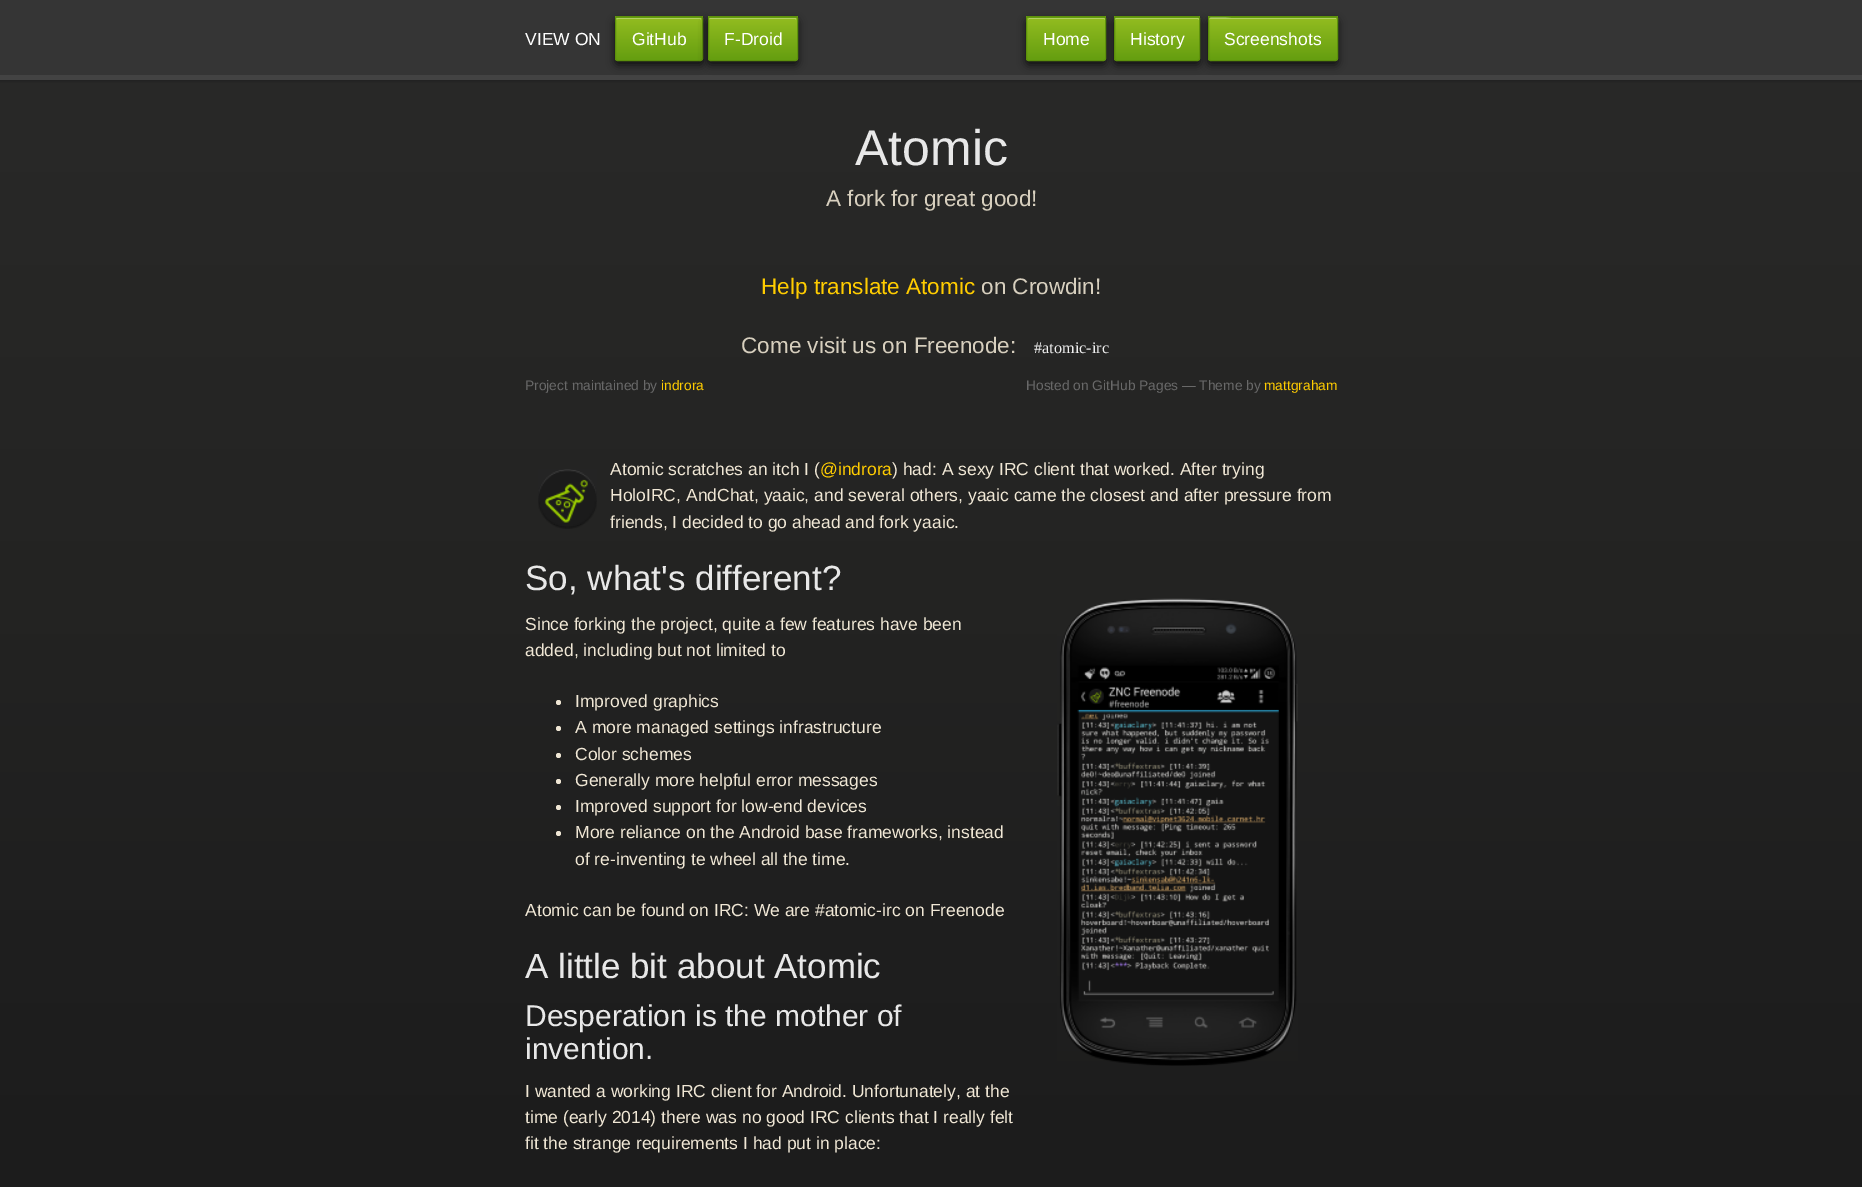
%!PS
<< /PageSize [1862 1187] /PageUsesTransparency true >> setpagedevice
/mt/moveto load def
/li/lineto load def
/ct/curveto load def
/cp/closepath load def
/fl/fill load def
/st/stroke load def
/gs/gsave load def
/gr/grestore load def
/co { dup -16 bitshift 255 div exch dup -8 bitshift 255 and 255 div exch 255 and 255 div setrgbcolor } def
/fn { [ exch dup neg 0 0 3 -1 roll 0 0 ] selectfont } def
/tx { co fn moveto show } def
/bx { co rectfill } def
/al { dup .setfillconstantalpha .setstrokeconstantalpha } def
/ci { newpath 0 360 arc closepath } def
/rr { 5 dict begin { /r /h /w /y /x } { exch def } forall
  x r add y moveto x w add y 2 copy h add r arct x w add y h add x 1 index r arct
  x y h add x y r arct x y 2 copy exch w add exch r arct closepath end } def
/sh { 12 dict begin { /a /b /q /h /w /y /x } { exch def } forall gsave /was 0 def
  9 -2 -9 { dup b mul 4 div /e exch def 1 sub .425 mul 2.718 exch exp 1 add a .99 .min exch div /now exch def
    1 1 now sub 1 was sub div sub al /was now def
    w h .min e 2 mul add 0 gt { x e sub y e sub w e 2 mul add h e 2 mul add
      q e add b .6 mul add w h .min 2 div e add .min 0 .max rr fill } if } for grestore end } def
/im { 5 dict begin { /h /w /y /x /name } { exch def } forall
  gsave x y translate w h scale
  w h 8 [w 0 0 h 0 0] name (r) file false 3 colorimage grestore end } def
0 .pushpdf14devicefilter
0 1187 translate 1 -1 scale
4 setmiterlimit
0 0 1862 1187 16#FFFFFF bx
gs 0 80 mt 1862 80 li 1862 1187 li 0 1187 li cp clip newpath
<< /ShadingType 2 /ColorSpace /DeviceRGB /Coords [931 0 931 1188] /Extend [true true] /Function << /FunctionType 2 /Domain [0 1] /C0 [.165 .165 .161] /C1 [.11 .11 .11] /N 1 >> >> shfill gr
16#000000 co
0 1 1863 80 0 2 .25 sh
0 0 1862 75 16#353535 bx
0 75 1862 5 16#434343 bx
16#000000 co
615 20 88 45 2.5 4.5 .7 sh
gs
615 16 88 45 2.5 rr clip newpath
gs 615 16 mt 703 16 li 703 18 li 615 18 li cp clip newpath
<< /ShadingType 2 /ColorSpace /DeviceRGB /Coords [659 -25 659 18] /Extend [true true] /Function << /FunctionType 2 /Domain [0 1] /C0 [.576 .741 .125] /C1 [.396 .62 .063] /N 1 >> >> shfill gr
gr
gs 615 18 mt 703 18 li 703 60 li 615 60 li cp clip newpath
<< /ShadingType 2 /ColorSpace /DeviceRGB /Coords [659 17 659 60] /Extend [true true] /Function << /FunctionType 2 /Domain [0 1] /C0 [.576 .741 .125] /C1 [.396 .62 .063] /N 1 >> >> shfill gr
16#B2D062 co
618 19 mt 700 19 li 701 19 701 19 701 20 ct 701 19 701 18 700 18 ct 617 18 li 616 18 616 19 616 20 ct 616 19 617 19 618 19 ct cp fl
16#5D910B co
615.5 16.5 87 44 2 rr st
16#000000 co
708 20 90 45 2.5 4.5 .7 sh
gs
708 16 90 45 2.5 rr clip newpath
gs 708 16 mt 798 16 li 798 18 li 708 18 li cp clip newpath
<< /ShadingType 2 /ColorSpace /DeviceRGB /Coords [753 -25 753 18] /Extend [true true] /Function << /FunctionType 2 /Domain [0 1] /C0 [.576 .741 .125] /C1 [.396 .62 .063] /N 1 >> >> shfill gr
gr
gs 708 18 mt 798 18 li 798 60 li 708 60 li cp clip newpath
<< /ShadingType 2 /ColorSpace /DeviceRGB /Coords [753 17 753 60] /Extend [true true] /Function << /FunctionType 2 /Domain [0 1] /C0 [.576 .741 .125] /C1 [.396 .62 .063] /N 1 >> >> shfill gr
16#B2D062 co
710 19 mt 795 19 li 796 19 796 19 796 20 ct 796 19 796 18 795 18 ct 710 18 li 709 18 709 19 709 20 ct 709 19 709 19 710 19 ct cp fl
16#5D910B co
708.5 16.5 89 44 2 rr st
16#000000 co
1208 20 130 45 2.5 4.5 .7 sh
gs
1208 16 130 45 2.5 rr clip newpath
gs 1208 16 mt 1338 16 li 1338 18 li 1208 18 li cp clip newpath
<< /ShadingType 2 /ColorSpace /DeviceRGB /Coords [1273 -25 1273 18] /Extend [true true] /Function << /FunctionType 2 /Domain [0 1] /C0 [.576 .741 .125] /C1 [.396 .62 .063] /N 1 >> >> shfill gr
gr
gs 1208 18 mt 1338 18 li 1338 60 li 1208 60 li cp clip newpath
<< /ShadingType 2 /ColorSpace /DeviceRGB /Coords [1273 17 1273 60] /Extend [true true] /Function << /FunctionType 2 /Domain [0 1] /C0 [.576 .741 .125] /C1 [.396 .62 .063] /N 1 >> >> shfill gr
0.3 al
16#FFFFFF co
1210 19 mt 1336 19 li 1336 20 li 1336 18 li 1231 18 li 1229 18 1209 13 1209 20 ct 1209 19 1209 19 1210 19 ct cp fl
1 al
16#5D910B co
1208.5 16.5 129 44 2 rr st
16#000000 co
1114 20 86 45 2.5 4.5 .7 sh
gs
1114 16 86 45 2.5 rr clip newpath
gs 1114 16 mt 1200 16 li 1200 18 li 1114 18 li cp clip newpath
<< /ShadingType 2 /ColorSpace /DeviceRGB /Coords [1157 -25 1157 18] /Extend [true true] /Function << /FunctionType 2 /Domain [0 1] /C0 [.576 .741 .125] /C1 [.396 .62 .063] /N 1 >> >> shfill gr
gr
gs 1114 18 mt 1200 18 li 1200 60 li 1114 60 li cp clip newpath
<< /ShadingType 2 /ColorSpace /DeviceRGB /Coords [1157 17 1157 60] /Extend [true true] /Function << /FunctionType 2 /Domain [0 1] /C0 [.576 .741 .125] /C1 [.396 .62 .063] /N 1 >> >> shfill gr
16#B2D062 co
1116 19 mt 1198 19 li 1199 20 li 1199 19 1199 18 1198 18 ct 1116 18 li 1115 18 1115 19 1115 20 ct cp fl
16#5D910B co
1114.5 16.5 85 44 2 rr st
16#000000 co
1026 20 80 45 2.5 4.5 .7 sh
gs
1026 16 80 45 2.5 rr clip newpath
gs 1026 16 mt 1106 16 li 1106 18 li 1026 18 li cp clip newpath
<< /ShadingType 2 /ColorSpace /DeviceRGB /Coords [1066 -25 1066 18] /Extend [true true] /Function << /FunctionType 2 /Domain [0 1] /C0 [.576 .741 .125] /C1 [.396 .62 .063] /N 1 >> >> shfill gr
gr
gs 1026 18 mt 1106 18 li 1106 60 li 1026 60 li cp clip newpath
<< /ShadingType 2 /ColorSpace /DeviceRGB /Coords [1066 17 1066 60] /Extend [true true] /Function << /FunctionType 2 /Domain [0 1] /C0 [.576 .741 .125] /C1 [.396 .62 .063] /N 1 >> >> shfill gr
16#B2D062 co
1029 19 mt 1104 19 li 1104 19 1105 19 1105 20 ct 1105 19 1105 18 1104 18 ct 1029 18 li 1028 20 li 1028 19 1028 19 1029 19 ct cp fl
16#5D910B co
1026.5 16.5 79 44 2 rr st
(media/1.raw) 538 469 59 60 im
(media/2.raw) 1057 598 241 468 im
16#F0E7D5 co
558.5 702.5 2.5 ci fl
558.5 728.5 2.5 ci fl
558.5 755.5 2.5 ci fl
558.5 781.5 2.5 ci fl
558.5 807.5 2.5 ci fl
558.5 833.5 2.5 ci fl
(VIEW ON) 525 45 /LiberationSans-Regular 17.5 16#FFFFFF tx
(GitHub) 632 45 /LiberationSans-Regular 17.5 16#FFFFFF tx
(F-Droid) 724 45 /LiberationSans-Regular 17.5 16#FFFFFF tx
(Home) 1043 45 /LiberationSans-Regular 17.5 16#FFFFFF tx
(History) 1130 45 /LiberationSans-Regular 17.5 16#FFFFFF tx
(Screenshots) 1224 45 /LiberationSans-Regular 17.5 16#FFFFFF tx
(Atomic) 855 165 /LiberationSans-Regular 50 16#E8E8E8 tx
(A fork for great good!) 826 206 /LiberationSans-Regular 22.5 16#D7CFBE tx
(Help translate Atomic) 761 294 /LiberationSans-Regular 22.5 16#FFCC00 tx
(on Crowdin!) 981 294 /LiberationSans-Regular 22.5 16#D7CFBE tx
(Come visit us on Freenode:) 741 353 /LiberationSans-Regular 22.5 16#D7CFBE tx
(#atomic-irc) 1034 353 /LiberationSerif-Regular 16.25 16#EFEFEF tx
(Project maintained by) 525 390 /LiberationSans-Regular 13.75 16#696969 tx
(indrora) 661 390 /LiberationSans-Regular 13.75 16#FFCC00 tx
(Hosted on GitHub Pages — Theme by) 1026 390 /LiberationSans-Regular 13.75 16#696969 tx
(mattgraham) 1264 390 /LiberationSans-Regular 13.75 16#FFCC00 tx
(Atomic scratches an itch I \() 610 475 /LiberationSans-Regular 17.5 16#F0E7D5 tx
(@indrora) 820 475 /LiberationSans-Regular 17.5 16#FFCC00 tx
(\) had: A sexy IRC client that worked. After trying) 892 475 /LiberationSans-Regular 17.5 16#F0E7D5 tx
(HoloIRC, AndChat, yaaic, and several others, yaaic came the closest and after pressure from) 610 501 /LiberationSans-Regular 17.5 16#F0E7D5 tx
(friends, I decided to go ahead and fork yaaic.) 610 528 /LiberationSans-Regular 17.5 16#F0E7D5 tx
(So, what's different?) 525 590 /LiberationSans-Regular 35 16#E8E8E8 tx
(Since forking the project, quite a few features have been) 525 630 /LiberationSans-Regular 17.5 16#F0E7D5 tx
(added, including but not limited to) 525 656 /LiberationSans-Regular 17.5 16#F0E7D5 tx
(Improved graphics) 575 707 /LiberationSans-Regular 17.5 16#F0E7D5 tx
(A more managed settings infrastructure) 575 733 /LiberationSans-Regular 17.5 16#F0E7D5 tx
(Color schemes) 575 760 /LiberationSans-Regular 17.5 16#F0E7D5 tx
(Generally more helpful error messages) 575 786 /LiberationSans-Regular 17.5 16#F0E7D5 tx
(Improved support for low-end devices) 575 812 /LiberationSans-Regular 17.5 16#F0E7D5 tx
(More reliance on the Android base frameworks, instead) 575 838 /LiberationSans-Regular 17.5 16#F0E7D5 tx
(of re-inventing te wheel all the time.) 575 865 /LiberationSans-Regular 17.5 16#F0E7D5 tx
(Atomic can be found on IRC: We are #atomic-irc on Freenode) 525 916 /LiberationSans-Regular 17.5 16#F0E7D5 tx
(A little bit about Atomic) 525 978 /LiberationSans-Regular 35 16#E8E8E8 tx
(Desperation is the mother of) 525 1026 /LiberationSans-Regular 30 16#E8E8E8 tx
(invention.) 525 1059 /LiberationSans-Regular 30 16#E8E8E8 tx
(I wanted a working IRC client for Android. Unfortunately, at the) 525 1097 /LiberationSans-Regular 17.5 16#F0E7D5 tx
(time \(early 2014\) there was no good IRC clients that I really felt) 525 1123 /LiberationSans-Regular 17.5 16#F0E7D5 tx
(fit the strange requirements I had put in place:) 525 1149 /LiberationSans-Regular 17.5 16#F0E7D5 tx
.poppdf14devicefilter showpage
